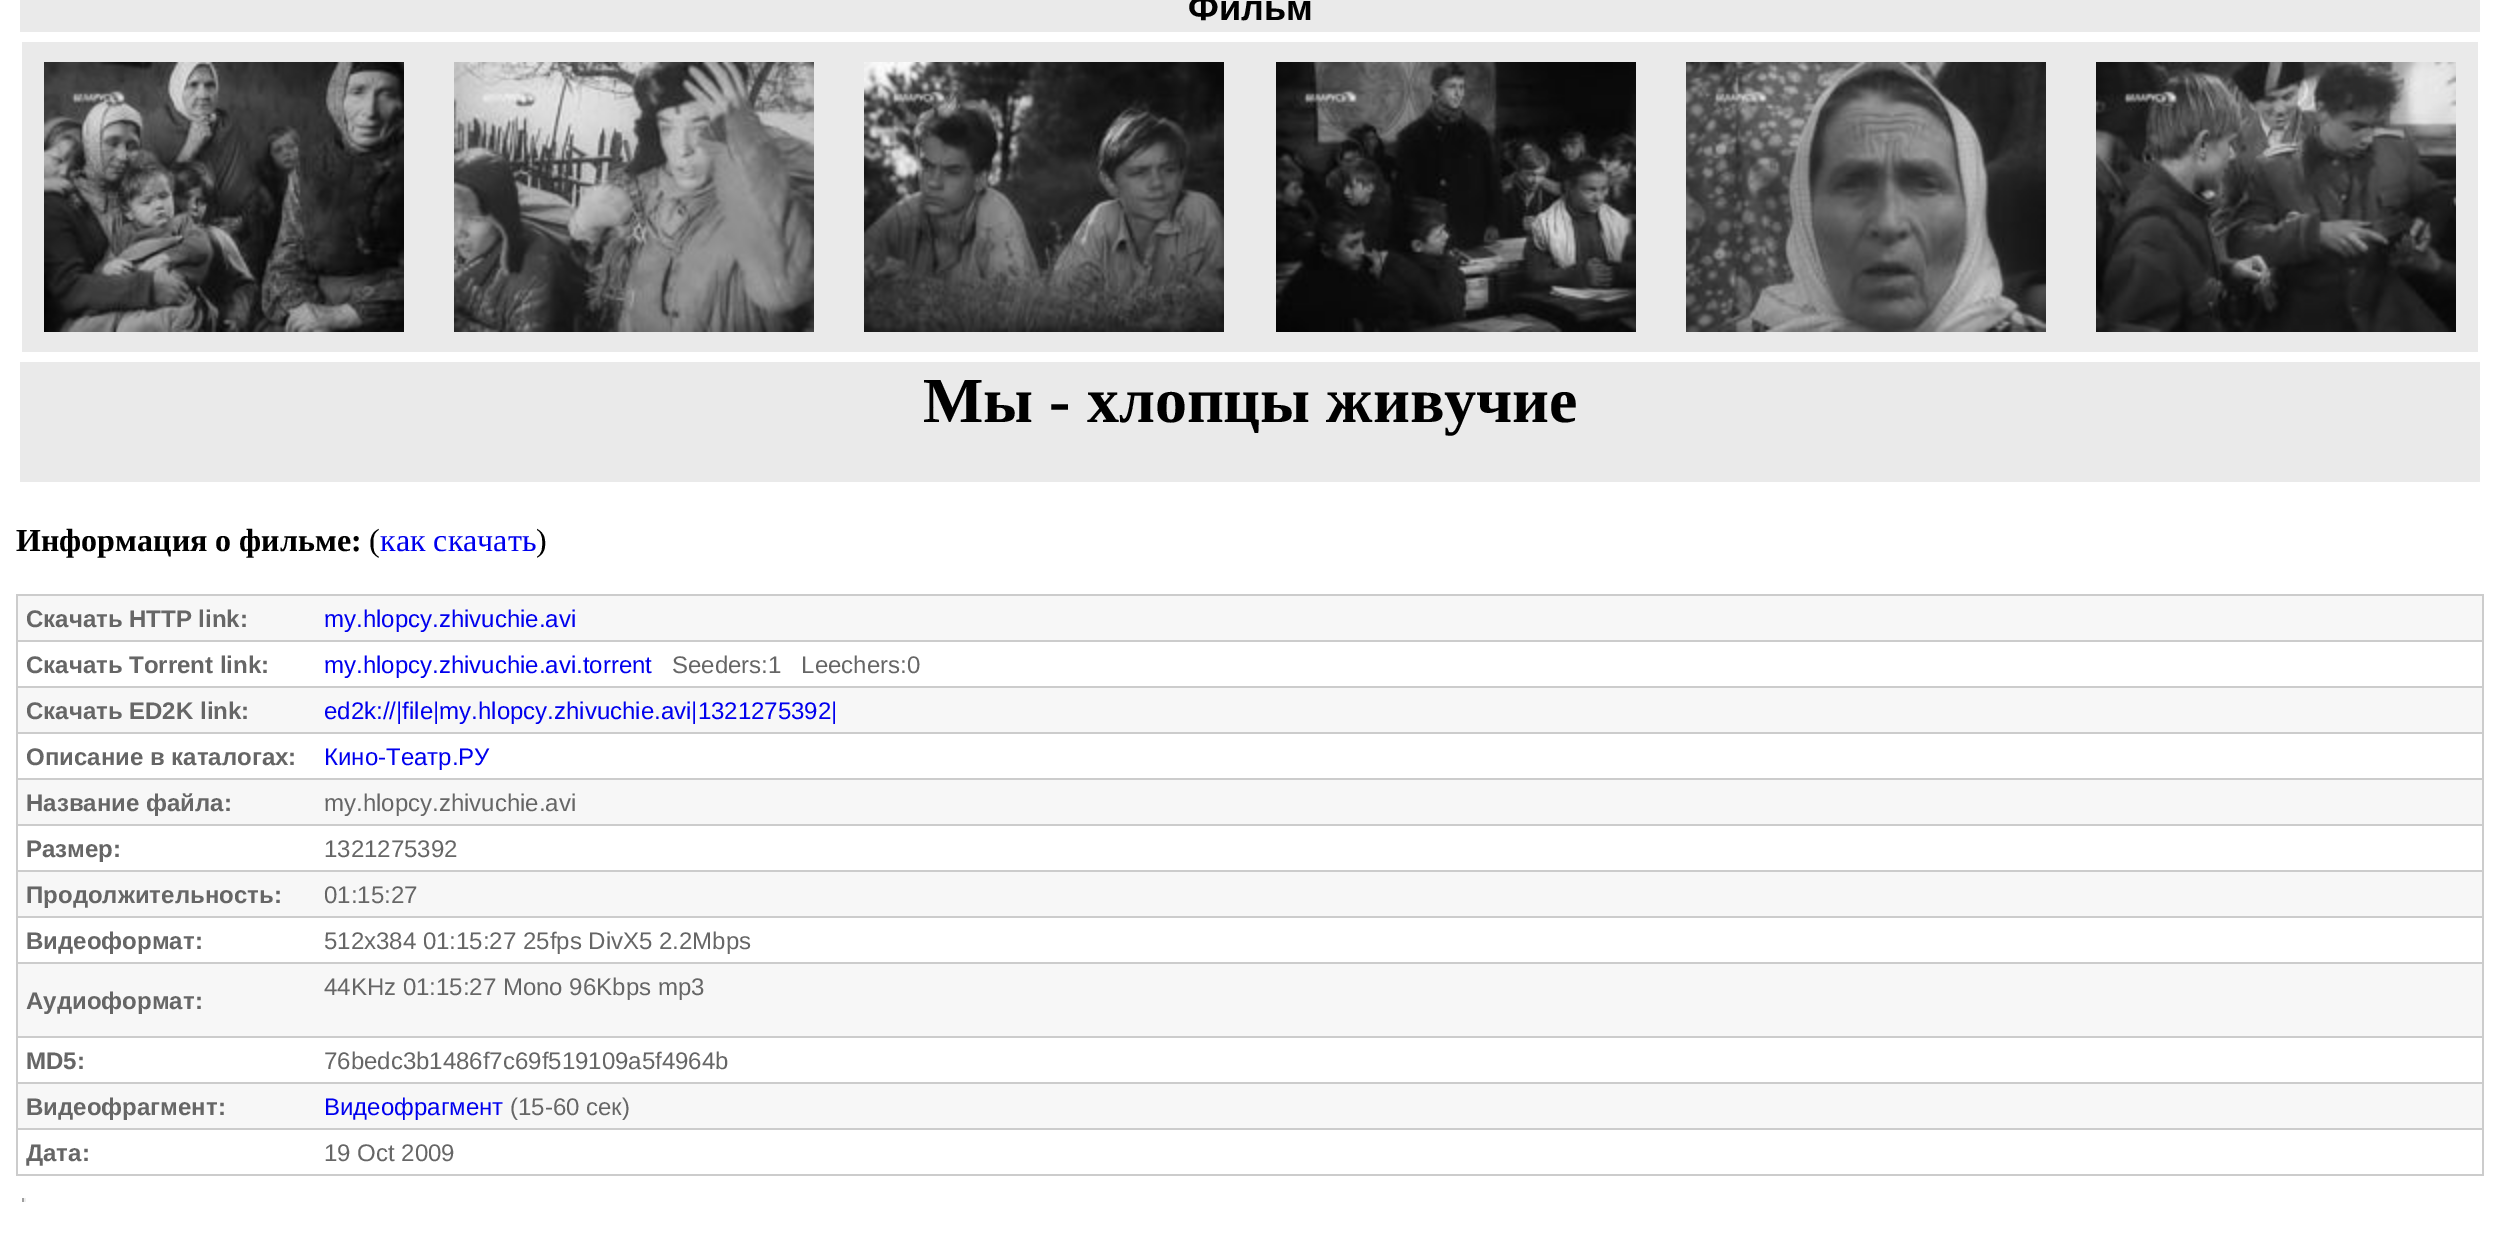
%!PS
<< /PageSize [2499 1234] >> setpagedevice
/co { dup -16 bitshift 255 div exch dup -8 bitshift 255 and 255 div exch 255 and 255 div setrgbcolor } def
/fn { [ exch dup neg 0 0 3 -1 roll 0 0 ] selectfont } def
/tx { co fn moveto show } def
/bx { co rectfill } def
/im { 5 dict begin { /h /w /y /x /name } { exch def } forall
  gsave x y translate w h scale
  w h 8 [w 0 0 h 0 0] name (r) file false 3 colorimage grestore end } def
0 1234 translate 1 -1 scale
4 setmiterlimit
0 0 2499 1234 16#FFFFFF bx
20 0 2460 32 16#EAEAEA bx
22 42 2456 310 16#EAEAEA bx
(media/1.raw) 44 62 360 270 im
(media/2.raw) 454 62 360 270 im
(media/3.raw) 864 62 360 270 im
(media/4.raw) 1276 62 360 270 im
(media/5.raw) 1686 62 360 270 im
(media/6.raw) 2096 62 360 270 im
20 362 2460 120 16#EAEAEA bx
16 594 2468 582 16#CCCCCC bx
18 596 2464 44 16#F7F7F7 bx
18 642 2464 44 16#FFFFFF bx
18 688 2464 44 16#F7F7F7 bx
18 734 2464 44 16#FFFFFF bx
18 780 2464 44 16#F7F7F7 bx
18 826 2464 44 16#FFFFFF bx
18 872 2464 44 16#F7F7F7 bx
18 918 2464 44 16#FFFFFF bx
18 964 2464 72 16#F7F7F7 bx
18 1038 2464 44 16#FFFFFF bx
18 1084 2464 44 16#F7F7F7 bx
18 1130 2464 44 16#FFFFFF bx
24 1198 2 4 16#EEEEEE bx
22 1200 4 2 16#EEEEEE bx
22 1198 2 4 16#9F9F9F bx
(Фильм) 1188 20 /LiberationSans-Bold 36 16#000000 tx
(Мы - хлопцы живучие) 923 422 /LiberationSerif-Bold 64 16#000000 tx
(Информация о фильме:) 16 551 /LiberationSerif-Bold 32 16#000000 tx
(\() 369 551 /LiberationSerif-Regular 32 16#000000 tx
(как скачать) 380 551 /LiberationSerif-Regular 32 16#0000EE tx
(\)) 536 551 /LiberationSerif-Regular 32 16#000000 tx
(Скачать HTTP link:) 26 627 /LiberationSans-Bold 24 16#666666 tx
(my.hlopcy.zhivuchie.avi) 324 627 /LiberationSans-Regular 24 16#0000EE tx
(Скачать Torrent link:) 26 673 /LiberationSans-Bold 24 16#666666 tx
(my.hlopcy.zhivuchie.avi.torrent) 324 673 /LiberationSans-Regular 24 16#0000EE tx
(Seeders:1   Leechers:0) 672 673 /LiberationSans-Regular 24 16#666666 tx
(Скачать ED2K link:) 26 719 /LiberationSans-Bold 24 16#666666 tx
(ed2k://|file|my.hlopcy.zhivuchie.avi|1321275392|) 324 719 /LiberationSans-Regular 24 16#0000EE tx
(Описание в каталогах:) 26 765 /LiberationSans-Bold 24 16#666666 tx
(Кино-Театр.РУ) 324 765 /LiberationSans-Regular 24 16#0000EE tx
(Название файла:) 26 811 /LiberationSans-Bold 24 16#666666 tx
(my.hlopcy.zhivuchie.avi) 324 811 /LiberationSans-Regular 24 16#666666 tx
(Размер:) 26 857 /LiberationSans-Bold 24 16#666666 tx
(1321275392) 324 857 /LiberationSans-Regular 24 16#666666 tx
(Продолжительность:) 26 903 /LiberationSans-Bold 24 16#666666 tx
(01:15:27) 324 903 /LiberationSans-Regular 24 16#666666 tx
(Видеоформат:) 26 949 /LiberationSans-Bold 24 16#666666 tx
(512x384 01:15:27 25fps DivX5 2.2Mbps) 324 949 /LiberationSans-Regular 24 16#666666 tx
(44KHz 01:15:27 Mono 96Kbps mp3) 324 995 /LiberationSans-Regular 24 16#666666 tx
(Аудиоформат:) 26 1009 /LiberationSans-Bold 24 16#666666 tx
(MD5:) 26 1069 /LiberationSans-Bold 24 16#666666 tx
(76bedc3b1486f7c69f519109a5f4964b) 324 1069 /LiberationSans-Regular 24 16#666666 tx
(Видеофрагмент:) 26 1115 /LiberationSans-Bold 24 16#666666 tx
(Видеофрагмент) 324 1115 /LiberationSans-Regular 24 16#0000EE tx
(\(15-60 сек\)) 510 1115 /LiberationSans-Regular 24 16#666666 tx
(Дата:) 26 1161 /LiberationSans-Bold 24 16#666666 tx
(19 Oct 2009) 324 1161 /LiberationSans-Regular 24 16#666666 tx
showpage
